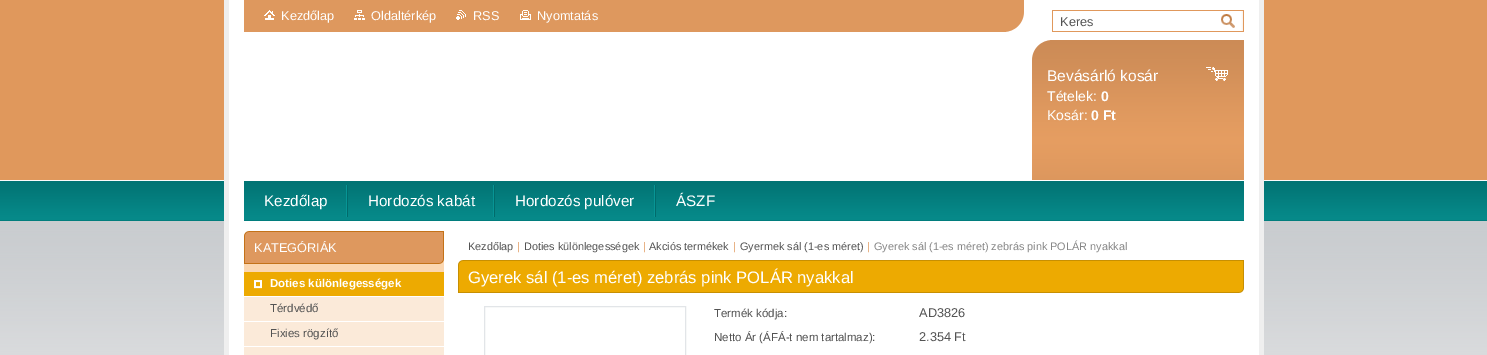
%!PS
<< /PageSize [1487 355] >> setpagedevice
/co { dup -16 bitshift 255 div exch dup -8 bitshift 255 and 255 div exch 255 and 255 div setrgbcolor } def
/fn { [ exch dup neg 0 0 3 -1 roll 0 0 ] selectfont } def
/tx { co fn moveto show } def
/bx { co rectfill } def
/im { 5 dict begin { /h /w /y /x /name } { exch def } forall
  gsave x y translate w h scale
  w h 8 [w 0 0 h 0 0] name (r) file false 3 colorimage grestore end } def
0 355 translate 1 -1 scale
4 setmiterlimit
0 0 1487 355 16#FFFFFF bx
(media/1.raw) 0 0 1487 355 im
229 0 1030 355 16#FFFFFF bx
1259 0 5 355 16#EFEFEF bx
224 0 5 355 16#EFEFEF bx
(media/2.raw) 244 0 780 32 im
(media/3.raw) 264 10 11 10 im
(media/4.raw) 354 10 11 10 im
(media/5.raw) 456 10 10 10 im
(media/6.raw) 520 10 11 10 im
(media/7.raw) 1052 10 192 22 im
(media/8.raw) 1032 40 212 140 im
(media/9.raw) 1206 67 22 14 im
244 220 1000 1 16#017D7D bx
(media/10.raw) 244 181 1000 39 im
(media/11.raw) 346 185 2 32 im
(media/11.raw) 493 185 2 32 im
(media/11.raw) 654 185 2 32 im
244 264 200 8 16#FBD7B1 bx
(media/12.raw) 244 231 200 33 im
(media/13.raw) 245 259 199 5 im
244 272 200 24 16#EDAA01 bx
(media/14.raw) 254 280 8 9 im
244 297 200 58 16#FBEAD9 bx
244 321 200 1 16#FFFFFF bx
244 346 200 1 16#FFFFFF bx
(media/15.raw) 458 260 786 33 im
(media/16.raw) 459 288 785 5 im
16#E2E5E8 co
484.5 306.5 201 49 rectstroke
(Kezdőlap) 281 20 /LiberationSans-Regular 12.75 16#FFFFFF tx
(Oldaltérkép) 371 20 /LiberationSans-Regular 12.75 16#FFFFFF tx
(RSS) 473 20 /LiberationSans-Regular 12.75 16#FFFFFF tx
(Nyomtatás) 537 20 /LiberationSans-Regular 12.75 16#FFFFFF tx
(Keres) 1060 26 /LiberationSans-Regular 12.75 16#535353 tx
(Bevásárló kosár) 1047 81 /LiberationSans-Regular 15.5 16#FFFFFF tx
(Tételek:) 1047 101 /LiberationSans-Regular 14 16#FFFFFF tx
(0) 1101 101 /LiberationSans-Bold 14 16#FFFFFF tx
(Kosár:) 1047 120 /LiberationSans-Regular 14 16#FFFFFF tx
(0 Ft) 1091 120 /LiberationSans-Bold 14 16#FFFFFF tx
(Kezdőlap) 264 206 /LiberationSans-Regular 15.25 16#FFFFFF tx
(Hordozós kabát) 368 206 /LiberationSans-Regular 15.25 16#FFFFFF tx
(Hordozós pulóver) 515 206 /LiberationSans-Regular 15.25 16#FFFFFF tx
(ÁSZF) 676 206 /LiberationSans-Regular 15.25 16#FFFFFF tx
(KATEGÓRIÁK) 254 252 /LiberationSans-Regular 12.75 16#FFFFFF tx
(Doties különlegességek) 270 287 /LiberationSans-Bold 11.5 16#FFFFFF tx
(Térdvédő) 270 312 /LiberationSans-Regular 11.5 16#535353 tx
(Fixies rögzítő) 270 337 /LiberationSans-Regular 11.5 16#535353 tx
(Kezdőlap) 468 250 /LiberationSans-Regular 10.9 16#535353 tx
(|) 517 250 /LiberationSans-Regular 10.9 16#E0985C tx
(Doties különlegességek) 524 250 /LiberationSans-Regular 10.9 16#535353 tx
(|) 643 250 /LiberationSans-Regular 10.9 16#E0985C tx
(Akciós termékek) 649 250 /LiberationSans-Regular 10.9 16#535353 tx
(|) 733 250 /LiberationSans-Regular 10.9 16#E0985C tx
(Gyermek sál \(1-es méret\)) 740 250 /LiberationSans-Regular 10.9 16#535353 tx
(|) 867 250 /LiberationSans-Regular 10.9 16#E0985C tx
(Gyerek sál \(1-es méret\) zebrás pink POLÁR nyakkal) 874 250 /LiberationSans-Regular 10.9 16#878787 tx
(Gyerek sál \(1-es méret\) zebrás pink POLÁR nyakkal) 468 283 /LiberationSans-Regular 16.6 16#FFFFFF tx
(Termék kódja:) 714 317 /LiberationSans-Regular 11.5 16#535353 tx
(AD3826) 919 317 /LiberationSans-Regular 12.75 16#535353 tx
(Netto Ár \(ÁFÁ-t nem tartalmaz\):) 714 341 /LiberationSans-Regular 11.5 16#535353 tx
(2.354 Ft) 919 341 /LiberationSans-Regular 12.75 16#535353 tx
showpage
